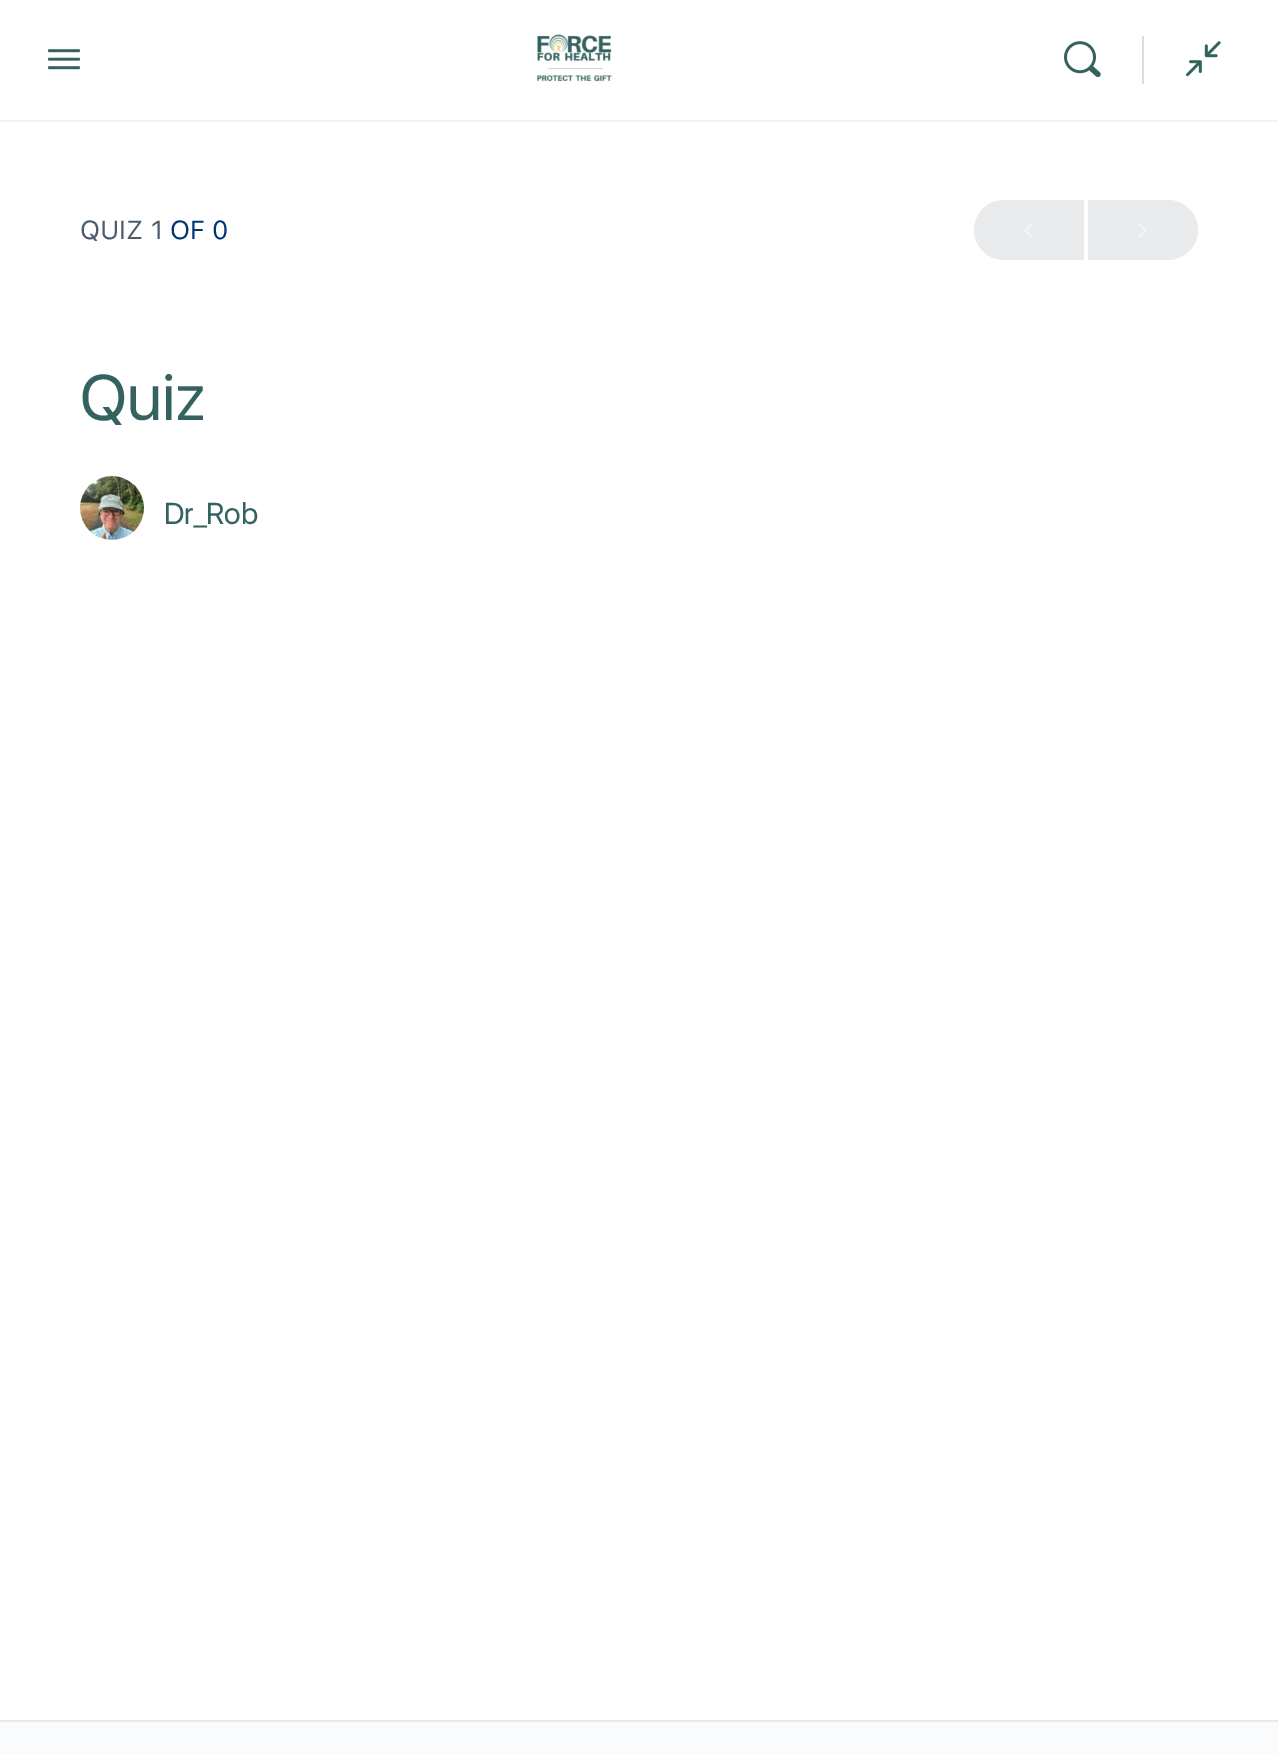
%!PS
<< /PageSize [1278 1754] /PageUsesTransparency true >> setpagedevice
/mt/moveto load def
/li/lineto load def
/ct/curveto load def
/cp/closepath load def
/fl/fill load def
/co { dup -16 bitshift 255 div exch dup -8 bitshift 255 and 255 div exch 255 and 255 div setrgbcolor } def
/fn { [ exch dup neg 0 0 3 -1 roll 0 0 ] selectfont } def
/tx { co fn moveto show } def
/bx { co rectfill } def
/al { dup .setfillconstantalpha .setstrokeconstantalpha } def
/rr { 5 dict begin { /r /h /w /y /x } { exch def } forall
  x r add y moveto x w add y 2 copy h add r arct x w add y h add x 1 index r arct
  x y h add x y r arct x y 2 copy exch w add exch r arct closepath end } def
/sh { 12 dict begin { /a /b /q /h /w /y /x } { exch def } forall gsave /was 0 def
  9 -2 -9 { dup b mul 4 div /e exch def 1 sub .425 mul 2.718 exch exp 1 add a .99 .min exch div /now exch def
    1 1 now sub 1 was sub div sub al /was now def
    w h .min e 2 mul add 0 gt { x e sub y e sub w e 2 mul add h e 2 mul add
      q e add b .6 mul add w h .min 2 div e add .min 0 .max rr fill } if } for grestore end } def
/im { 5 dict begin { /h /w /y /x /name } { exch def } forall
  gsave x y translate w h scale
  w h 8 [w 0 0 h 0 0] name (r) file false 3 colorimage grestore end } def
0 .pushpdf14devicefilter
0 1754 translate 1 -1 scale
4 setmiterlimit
0 0 1278 1754 16#FAFBFD bx
0 120 1278 1600 16#FFFFFF bx
16#41476C co
0 0 1278 120 0 1 .15 sh
0.05 al
0 120 1278 2 16#8B8D9D bx
1 al
0 0 1278 120 16#FFFFFF bx
(media/1.raw) 48 49 32 21 im
(media/2.raw) 537 34 75 48 im
(media/3.raw) 1064 41 37 37 im
1142 36 2 48 16#D6E0DF bx
(media/4.raw) 1186 41 35 36 im
0 1720 1278 2 16#E7E9EC bx
16#E9EBED co
1004 200 mt 1084 200 li 1084 260 li 1004 260 li 987.5 260 974 246.5 974 230 ct 974 213.5 987.5 200 1004 200 ct cp fl
(media/5.raw) 1024 223 9 15 im
1088 200 mt 1168 200 li 1184.5 200 1198 213.5 1198 230 ct 1198 246.5 1184.5 260 1168 260 ct 1088 260 li cp fl
(media/6.raw) 1138 223 9 15 im
(media/7.raw) 80 476 64 64 im
(QUIZ 1) 80 239 /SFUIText-Regular 26 16#4D5C6D tx
(OF 0) 170 239 /SFUIText-Regular 26 16#00357A tx
(Quiz) 80 420 /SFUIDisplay-Regular 64 16#34635F tx
(Dr_Rob) 164 524 /SFUIDisplay-Regular 30 16#34635F tx
.poppdf14devicefilter showpage
